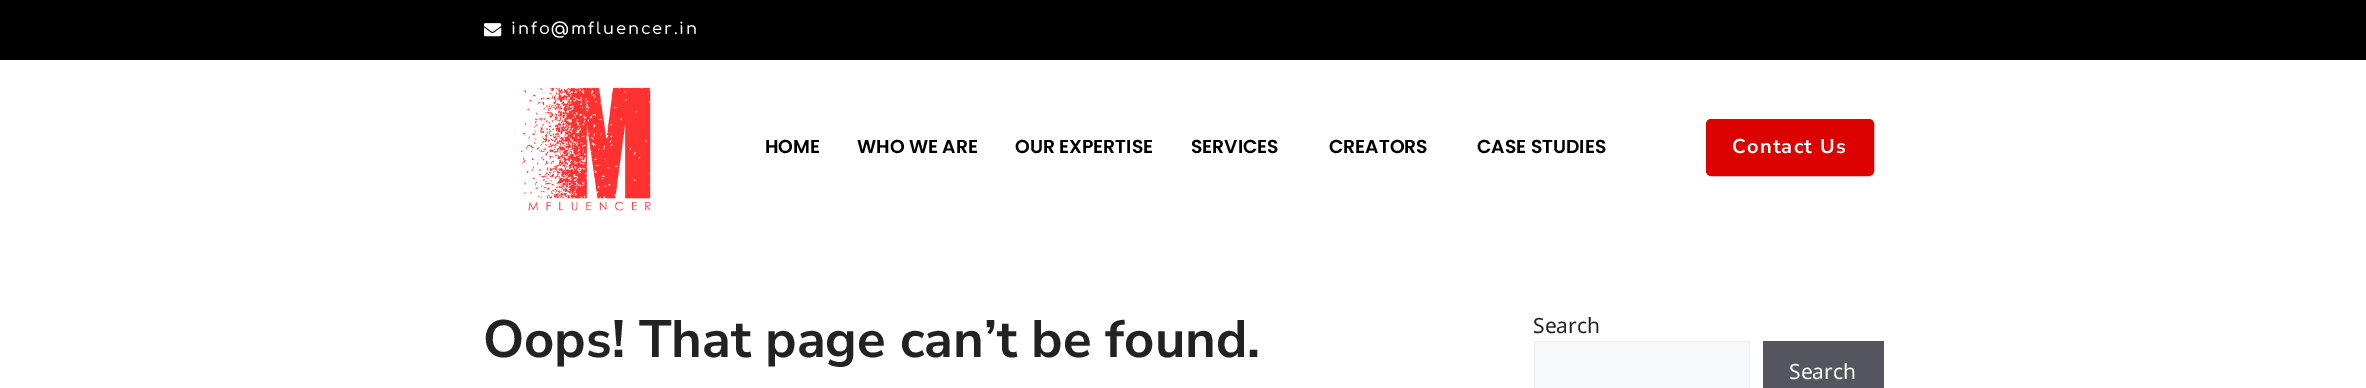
%!PS
<< /PageSize [2366 388] >> setpagedevice
/mt/moveto load def
/li/lineto load def
/cp/closepath load def
/fl/fill load def
/st/stroke load def
/gs/gsave load def
/gr/grestore load def
/co { dup -16 bitshift 255 div exch dup -8 bitshift 255 and 255 div exch 255 and 255 div setrgbcolor } def
/fn { [ exch dup neg 0 0 3 -1 roll 0 0 ] selectfont } def
/tx { co fn moveto show } def
/bx { co rectfill } def
/rr { 5 dict begin { /r /h /w /y /x } { exch def } forall
  x r add y moveto x w add y 2 copy h add r arct x w add y h add x 1 index r arct
  x y h add x y r arct x y 2 copy exch w add exch r arct closepath end } def
/im { 5 dict begin { /h /w /y /x /name } { exch def } forall
  gsave x y translate w h scale
  w h 8 [w 0 0 h 0 0] name (r) file false 3 colorimage grestore end } def
0 388 translate 1 -1 scale
4 setmiterlimit
0 0 2366 388 16#FFFFFF bx
0 0 2366 60 16#000000 bx
(media/1.raw) 484 23 18 14 im
(media/2.raw) 521 87 130 124 im
16#DB0200 co
1706.5 119.5 167 56 4.5 rr gs fl gr
st
16#F7F8F9 co
1534.5 341.5 mt 1749.5 341.5 li 1749.5 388.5 li 1534.5 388.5 li cp gs fl gr
16#F0F0F0 co
st
1763 341 121 47 16#55555E bx
/Comfortaa-SemiBold 16.25 fn
16#FFFFFF co
511 34 mt 1.9 0 (info@mfluencer.in) ashow
(HOME) 765 153 /Poppins-SemiBold 18.75 16#000000 tx
(WHO WE ARE) 857 153 /Poppins-SemiBold 18.75 16#000000 tx
(OUR EXPERTISE) 1015 153 /Poppins-SemiBold 18.75 16#000000 tx
(SERVICES) 1191 153 /Poppins-SemiBold 18.75 16#000000 tx
(CREATORS) 1329 153 /Poppins-SemiBold 18.75 16#000000 tx
(CASE STUDIES) 1477 153 /Poppins-SemiBold 18.75 16#000000 tx
/NunitoSans-Bold 20 fn
16#FFFFFF co
1732 153 mt 1.25 0 (Contact Us) ashow
(Oops! That page can’t be found.) 483 357 /NunitoSans-Bold 52.5 16#222222 tx
(Search) 1533 333 /NotoSans-Regular 21 16#222222 tx
(Search) 1789 379 /NotoSans-Regular 21 16#FFFFFF tx
showpage
